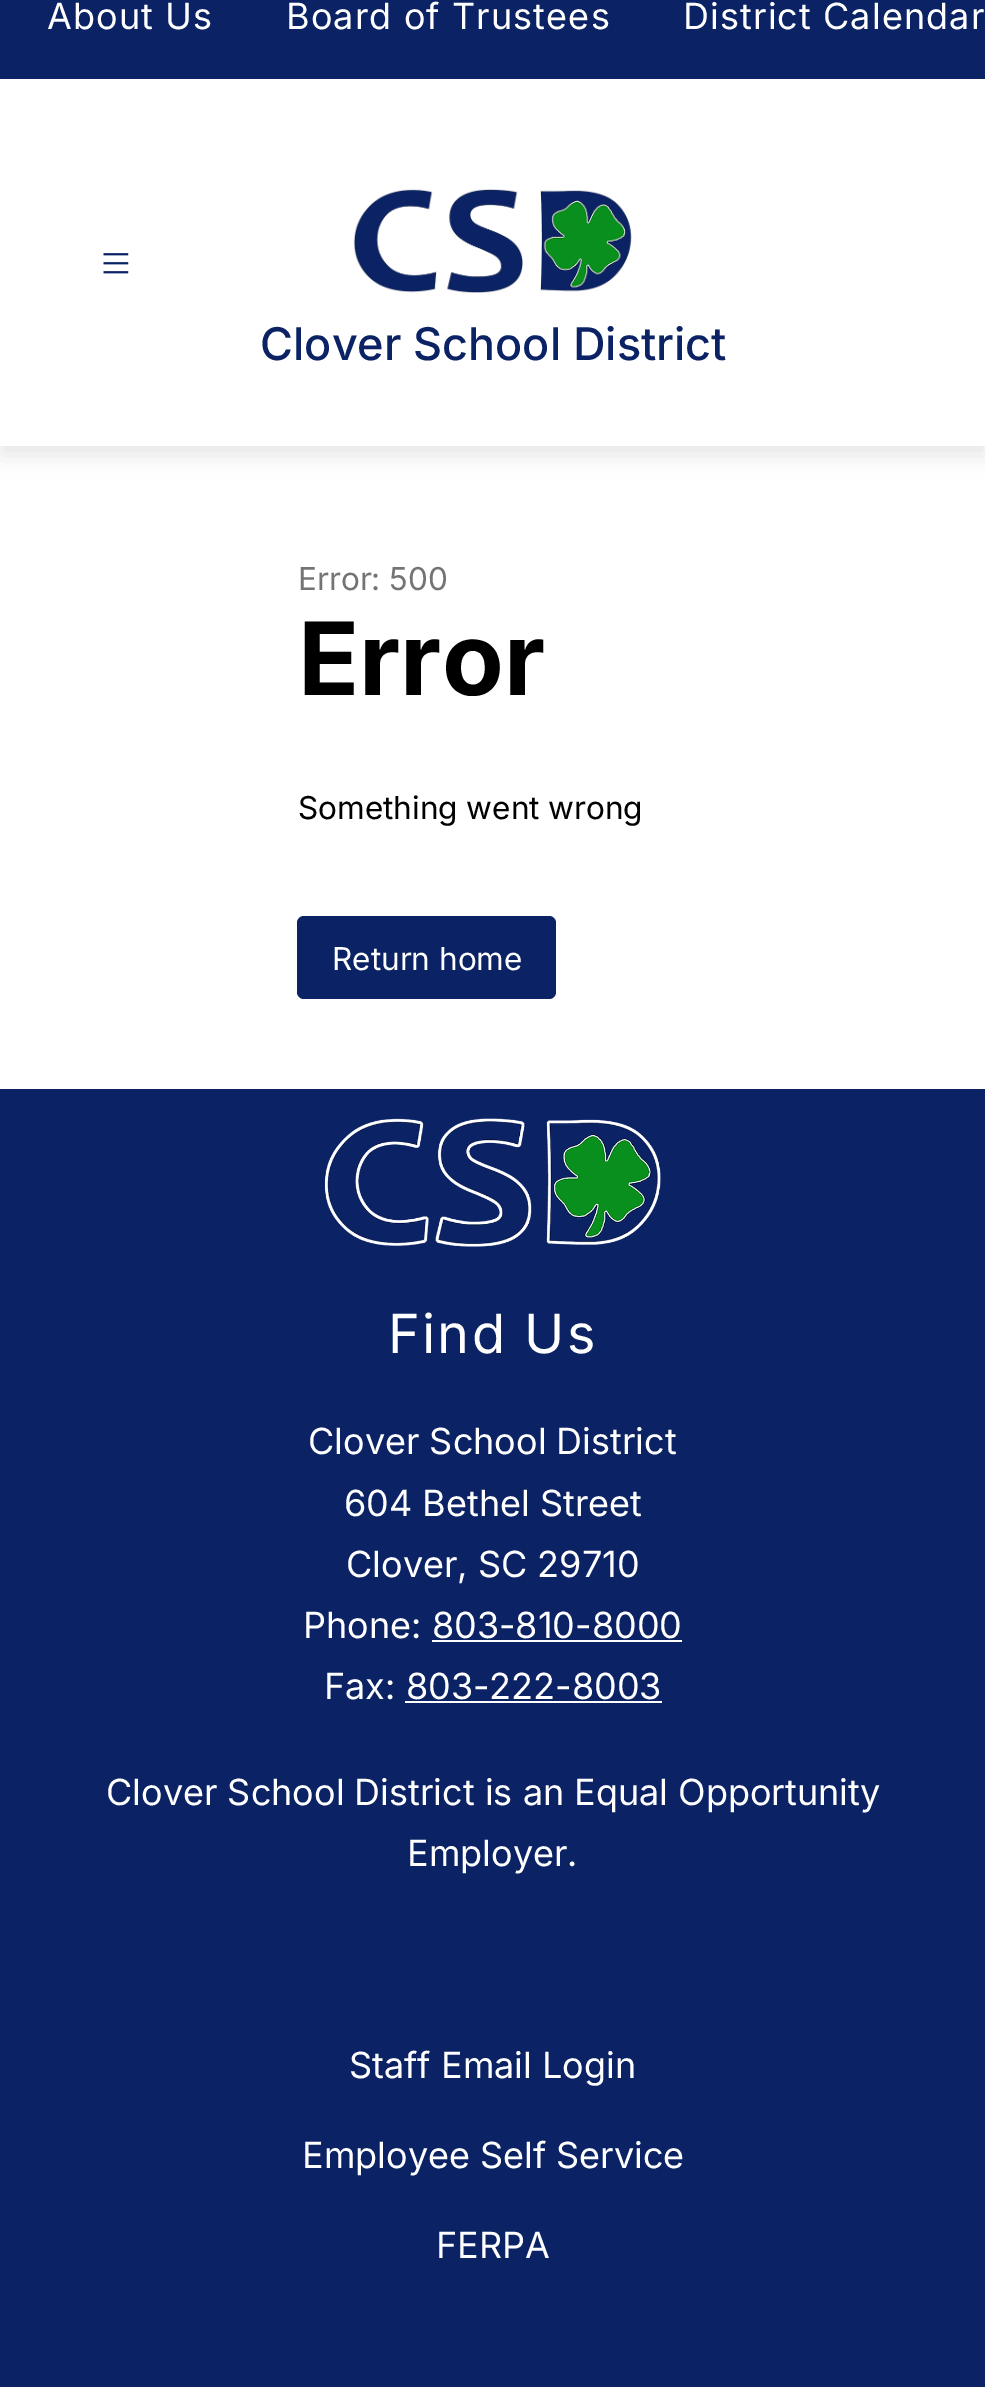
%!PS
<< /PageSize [985 2387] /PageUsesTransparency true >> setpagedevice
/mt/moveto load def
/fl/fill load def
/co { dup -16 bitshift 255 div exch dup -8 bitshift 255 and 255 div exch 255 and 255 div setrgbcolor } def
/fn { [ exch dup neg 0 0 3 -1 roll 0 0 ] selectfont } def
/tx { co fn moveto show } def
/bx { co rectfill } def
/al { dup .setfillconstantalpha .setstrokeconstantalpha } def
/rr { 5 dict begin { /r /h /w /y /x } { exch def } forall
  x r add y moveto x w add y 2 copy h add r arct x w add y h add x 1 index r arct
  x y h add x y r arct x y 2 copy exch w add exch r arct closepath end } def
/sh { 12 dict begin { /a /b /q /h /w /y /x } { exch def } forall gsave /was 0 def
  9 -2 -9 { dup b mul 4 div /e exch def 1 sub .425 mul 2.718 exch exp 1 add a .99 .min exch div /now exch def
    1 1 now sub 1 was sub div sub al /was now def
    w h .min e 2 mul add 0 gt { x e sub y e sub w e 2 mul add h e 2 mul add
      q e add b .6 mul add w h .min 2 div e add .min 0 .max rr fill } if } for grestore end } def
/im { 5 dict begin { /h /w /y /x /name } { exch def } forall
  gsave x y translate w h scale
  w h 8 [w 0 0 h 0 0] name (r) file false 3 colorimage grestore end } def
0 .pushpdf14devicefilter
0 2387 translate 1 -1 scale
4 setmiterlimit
0 0 985 2387 16#FFFFFF bx
16#000000 co
0 -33 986 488 0 11 .1 sh
0 79 985 367 16#FFFFFF bx
0 0 985 79 16#0B2364 bx
(media/1.raw) 103 253 26 21 im
(media/2.raw) 353 189 279 104 im
297 916 259 83 7 rr fl
0 1089 985 1298 16#0B2364 bx
(media/3.raw) 324 1118 337 129 im
432 1640 250 2 16#FFFFFF bx
405 1701 257 2 16#FFFFFF bx
/Inter-Regular 36 fn
47 29 mt 1.1 0 (About Us) ashow
286 29 mt 1.1 0 (Board of Trustees) ashow
683 29 mt 1.1 0 (District Calendar) ashow
(Clover School District) 260 360 /Inter-Medium 45 16#0B2364 tx
(Error: 500) 298 590 /Inter-Regular 31.5 16#747474 tx
(Error) 298 695 /Inter-Bold 101 16#000000 tx
(Something went wrong) 298 819 /Inter-Regular 31.5 16#000000 tx
(Return home) 332 970 /Inter-Regular 31.5 16#FFFFFF tx
/Inter-Regular 54 fn
388 1353 mt 2.25 0 (Find Us) ashow
(Clover School District) 308 1454 /Inter-Regular 36 16#FFFFFF tx
(604 Bethel Street) 344 1516 /Inter-Regular 36 16#FFFFFF tx
(Clover, SC 29710) 346 1577 /Inter-Regular 36 16#FFFFFF tx
(Phone: 803-810-8000) 303 1638 /Inter-Regular 36 16#FFFFFF tx
(Fax: 803-222-8003) 324 1699 /Inter-Regular 36 16#FFFFFF tx
(Clover School District is an Equal Opportunity) 106 1805 /Inter-Regular 36 16#FFFFFF tx
(Employer.) 407 1866 /Inter-Regular 36 16#FFFFFF tx
(Staff Email Login) 349 2078 /Inter-Regular 36 16#FFFFFF tx
(Employee Self Service) 302 2168 /Inter-Regular 36 16#FFFFFF tx
(FERPA) 436 2258 /Inter-Regular 36 16#FFFFFF tx
.poppdf14devicefilter showpage
